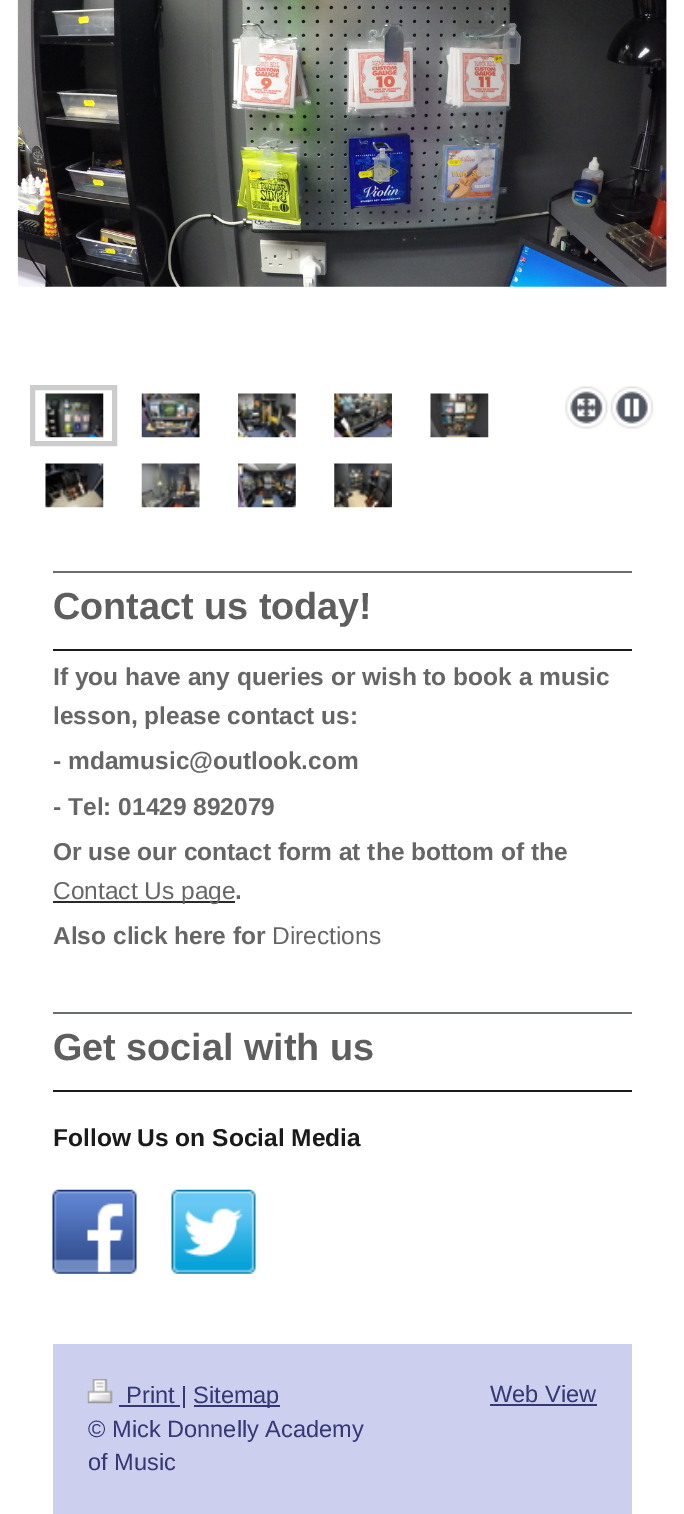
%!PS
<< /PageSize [684 1514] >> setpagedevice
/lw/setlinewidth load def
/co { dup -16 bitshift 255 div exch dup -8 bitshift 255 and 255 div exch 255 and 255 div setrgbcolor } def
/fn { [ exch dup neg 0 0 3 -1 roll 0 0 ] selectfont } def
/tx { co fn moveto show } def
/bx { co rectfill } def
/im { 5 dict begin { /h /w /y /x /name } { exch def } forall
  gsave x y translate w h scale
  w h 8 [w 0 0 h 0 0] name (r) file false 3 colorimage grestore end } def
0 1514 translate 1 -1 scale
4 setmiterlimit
0 0 684 1514 16#FFFFFF bx
(media/1.raw) 17 0 650 287 im
16#CCCCCC co
5 lw
32.5 387.5 82 56 rectstroke
(media/2.raw) 45 393 59 45 im
(media/3.raw) 141 393 59 45 im
(media/4.raw) 238 393 58 45 im
(media/5.raw) 334 393 58 45 im
(media/6.raw) 430 393 59 45 im
(media/7.raw) 565 386 44 43 im
(media/8.raw) 610 386 44 43 im
(media/9.raw) 45 463 59 45 im
(media/10.raw) 141 463 59 45 im
(media/11.raw) 238 463 58 45 im
(media/12.raw) 334 463 58 45 im
53 571 579 2 16#6A6D72 bx
53 649 579 2 16#1A1A1A bx
53 901 182 2 16#28292B bx
53 1012 579 2 16#6A6D72 bx
53 1090 579 2 16#1A1A1A bx
(media/13.raw) 52 1189 85 85 im
(media/14.raw) 171 1189 85 85 im
53 1344 579 170 16#CDCFEE bx
(media/15.raw) 87 1378 26 26 im
119 1405 61 2 16#343874 bx
194 1405 86 2 16#343874 bx
490 1404 107 2 16#343874 bx
(Contact us today!) 53 619 /LiberationSans-Bold 37.75 16#5E5E5E tx
(If you have any queries or wish to book a music) 53 685 /LiberationSans-Bold 24.5 16#666666 tx
(lesson, please contact us:) 53 724 /LiberationSans-Bold 24.5 16#666666 tx
(- mdamusic@outlook.com) 53 769 /LiberationSans-Bold 24.5 16#666666 tx
(- Tel: 01429 892079) 53 815 /LiberationSans-Bold 24.5 16#666666 tx
(Or use our contact form at the bottom of the) 53 860 /LiberationSans-Bold 24.5 16#666666 tx
(Contact Us page) 53 899 /LiberationSans-Regular 24.5 16#666666 tx
(.) 235 899 /LiberationSans-Bold 24.5 16#666666 tx
(Also click here for) 53 944 /LiberationSans-Bold 24.5 16#666666 tx
(Directions) 272 944 /LiberationSans-Regular 24.5 16#666666 tx
(Get social with us) 53 1060 /LiberationSans-Bold 37.75 16#5E5E5E tx
(Follow Us on Social Media) 53 1146 /LiberationSans-Bold 24.5 16#1A1A1A tx
(Print |) 126 1403 /LiberationSans-Regular 23.6 16#343874 tx
(Sitemap) 193 1403 /LiberationSans-Regular 23.6 16#343874 tx
(© Mick Donnelly Academy) 88 1437 /LiberationSans-Regular 23.6 16#343874 tx
(of Music) 88 1470 /LiberationSans-Regular 23.6 16#343874 tx
(Web View) 490 1402 /LiberationSans-Regular 23.6 16#343874 tx
showpage
